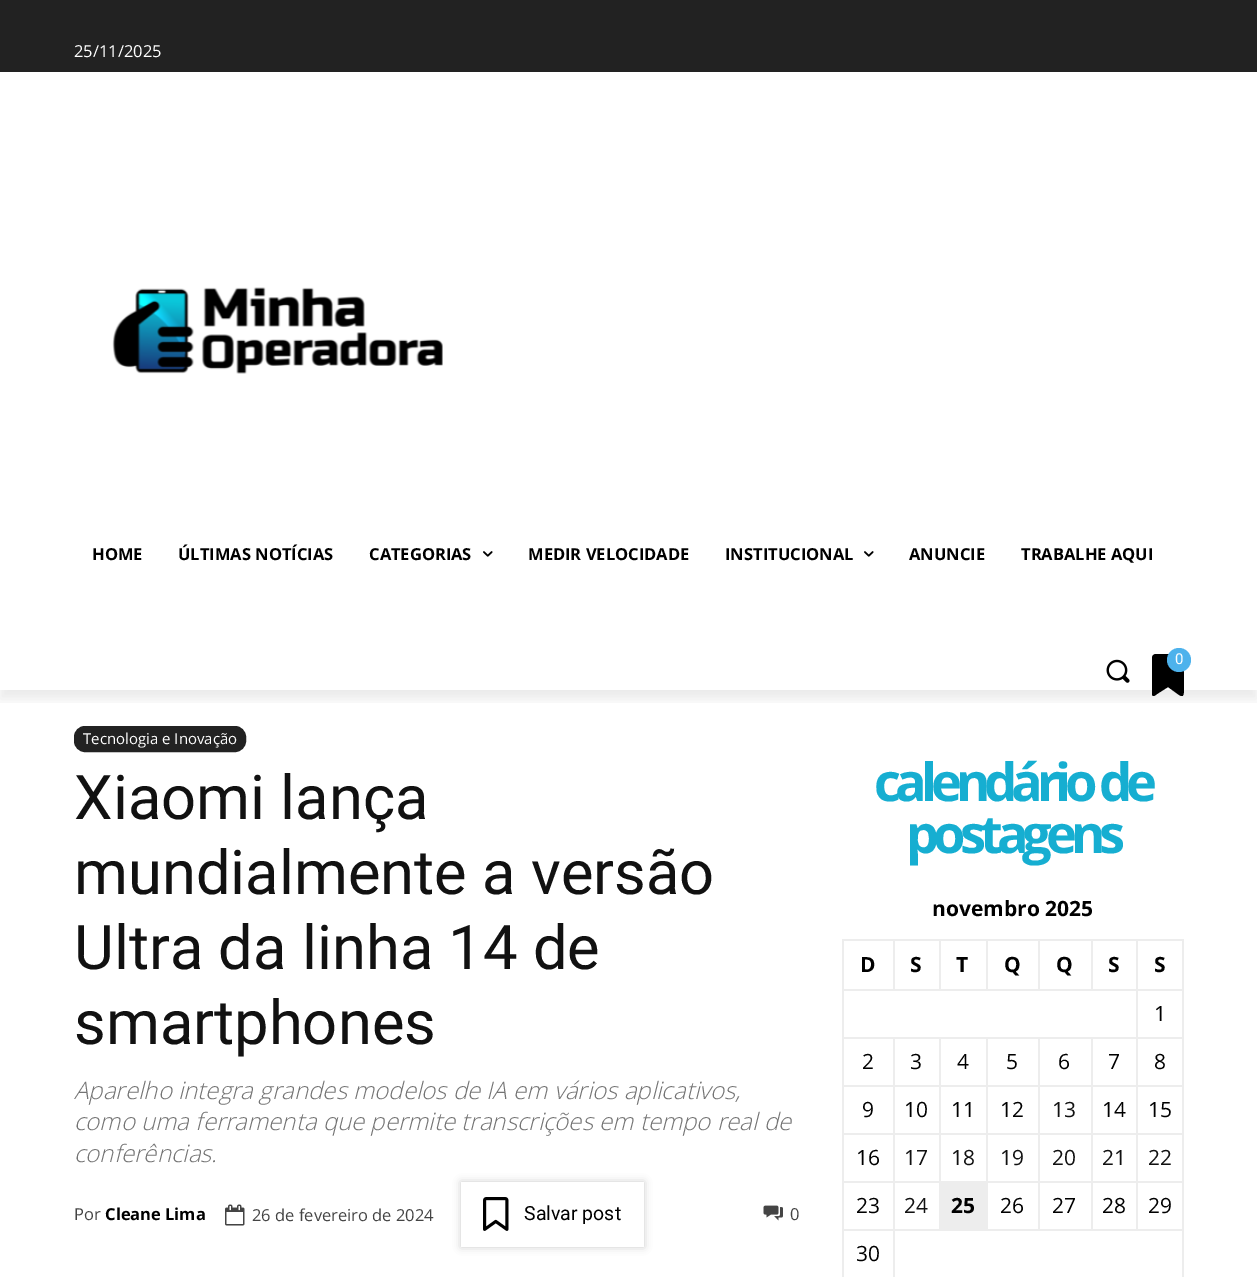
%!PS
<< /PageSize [1257 1277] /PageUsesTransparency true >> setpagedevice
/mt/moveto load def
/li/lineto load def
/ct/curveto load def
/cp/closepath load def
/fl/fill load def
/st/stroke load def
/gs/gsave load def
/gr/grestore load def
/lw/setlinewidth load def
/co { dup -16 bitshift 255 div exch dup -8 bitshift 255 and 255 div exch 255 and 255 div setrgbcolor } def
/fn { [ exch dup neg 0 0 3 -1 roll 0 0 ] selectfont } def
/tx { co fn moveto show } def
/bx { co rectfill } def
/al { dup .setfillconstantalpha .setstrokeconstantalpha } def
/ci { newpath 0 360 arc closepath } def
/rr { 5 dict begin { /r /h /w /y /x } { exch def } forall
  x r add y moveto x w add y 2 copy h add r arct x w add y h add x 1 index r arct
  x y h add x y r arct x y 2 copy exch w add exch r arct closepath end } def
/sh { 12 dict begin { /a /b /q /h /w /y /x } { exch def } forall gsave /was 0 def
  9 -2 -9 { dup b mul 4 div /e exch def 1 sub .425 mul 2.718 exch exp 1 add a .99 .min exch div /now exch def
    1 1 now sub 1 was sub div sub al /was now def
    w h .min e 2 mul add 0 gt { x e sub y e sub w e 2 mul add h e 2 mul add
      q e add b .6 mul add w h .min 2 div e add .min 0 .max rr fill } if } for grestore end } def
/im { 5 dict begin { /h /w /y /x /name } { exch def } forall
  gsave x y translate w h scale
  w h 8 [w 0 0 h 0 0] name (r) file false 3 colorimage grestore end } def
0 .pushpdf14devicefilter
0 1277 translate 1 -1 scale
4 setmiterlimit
0 0 1257 1277 16#FFFFFF bx
0 0 1257 72 16#222222 bx
(media/1.raw) 112 287 331 87 im
gs
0 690 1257 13 rectclip
16#000000 co
0 9 1257 690 0 6 .08 sh
gr
(media/2.raw) 483 551 10 6 im
(media/2.raw) 864 551 10 6 im
(media/3.raw) 1106 659 24 24 im
gs
1152 654 32 42 rectclip
16#000000 co
1152 658 mt 1152 688 li 1152 694 1151 699 1157 694 ct 1168 687 li 1184 698 1184 702 1184 682 ct 1184 664 li 1184 653 1183 654 1172 654 ct 1164 654 li 1161 654 1152 652 1152 658 ct cp fl
gr
16#4DB2EC co
1179 660 12 ci fl
16#222222 co
75 727 170 24 10 rr gs fl gr
2 lw
st
(media/4.raw) 225 1204 20 22 im
16#000000 co
461 1182 183 65 0 4 .2 sh
461 1182 183 65 16#FFFFFF bx
(media/5.raw) 483 1197 26 34 im
(media/6.raw) 763 1205 20 16 im
1136 939 48 2 16#EDEDED bx
1136 989 48 2 16#EDEDED bx
1136 1037 48 2 16#EDEDED bx
1136 1085 48 2 16#EDEDED bx
1136 1133 48 2 16#EDEDED bx
1136 1181 48 2 16#EDEDED bx
893 1229 291 2 16#EDEDED bx
1136 1181 2 49 16#EDEDED bx
1091 1181 46 2 16#EDEDED bx
1136 1133 2 49 16#EDEDED bx
1091 1133 46 2 16#EDEDED bx
1136 1085 2 49 16#EDEDED bx
1091 1085 46 2 16#EDEDED bx
1136 1037 2 49 16#EDEDED bx
1091 1037 46 2 16#EDEDED bx
1136 989 2 49 16#EDEDED bx
842 989 295 2 16#EDEDED bx
1136 939 2 51 16#EDEDED bx
1091 939 46 2 16#EDEDED bx
1091 939 2 51 16#EDEDED bx
1038 939 54 2 16#EDEDED bx
1038 939 2 51 16#EDEDED bx
986 939 54 2 16#EDEDED bx
986 939 2 51 16#EDEDED bx
939 939 48 2 16#EDEDED bx
939 939 2 51 16#EDEDED bx
893 939 48 2 16#EDEDED bx
893 939 2 51 16#EDEDED bx
842 939 52 2 16#EDEDED bx
1091 1181 2 49 16#EDEDED bx
1038 1181 54 2 16#EDEDED bx
1091 1133 2 49 16#EDEDED bx
1038 1133 54 2 16#EDEDED bx
1091 1085 2 49 16#EDEDED bx
1038 1085 54 2 16#EDEDED bx
1091 1037 2 49 16#EDEDED bx
1038 1037 54 2 16#EDEDED bx
1038 1181 2 49 16#EDEDED bx
986 1181 54 2 16#EDEDED bx
1038 1133 2 49 16#EDEDED bx
986 1133 54 2 16#EDEDED bx
1038 1085 2 49 16#EDEDED bx
986 1085 54 2 16#EDEDED bx
1038 1037 2 49 16#EDEDED bx
986 1037 54 2 16#EDEDED bx
986 1181 2 49 16#EDEDED bx
986 1133 2 49 16#EDEDED bx
939 1133 48 2 16#EDEDED bx
986 1085 2 49 16#EDEDED bx
939 1085 48 2 16#EDEDED bx
986 1037 2 49 16#EDEDED bx
939 1037 48 2 16#EDEDED bx
939 1181 47 48 16#EDEDED bx
893 1181 48 2 16#EDEDED bx
939 1133 2 49 16#EDEDED bx
893 1133 48 2 16#EDEDED bx
939 1085 2 49 16#EDEDED bx
893 1085 48 2 16#EDEDED bx
939 1037 2 49 16#EDEDED bx
893 1037 48 2 16#EDEDED bx
893 1229 2 48 16#EDEDED bx
842 1229 52 2 16#EDEDED bx
893 1181 2 49 16#EDEDED bx
842 1181 52 2 16#EDEDED bx
893 1133 2 49 16#EDEDED bx
842 1133 52 2 16#EDEDED bx
893 1085 2 49 16#EDEDED bx
842 1085 52 2 16#EDEDED bx
893 1037 2 49 16#EDEDED bx
842 1037 52 2 16#EDEDED bx
842 1229 2 48 16#EDEDED bx
842 1181 2 49 16#EDEDED bx
842 1133 2 49 16#EDEDED bx
842 1085 2 49 16#EDEDED bx
842 1037 2 49 16#EDEDED bx
842 989 2 49 16#EDEDED bx
842 939 2 51 16#EDEDED bx
1182 1229 2 48 16#EDEDED bx
1182 1181 2 49 16#EDEDED bx
1182 1133 2 49 16#EDEDED bx
1182 1085 2 49 16#EDEDED bx
1182 1037 2 49 16#EDEDED bx
1182 989 2 49 16#EDEDED bx
1182 939 2 51 16#EDEDED bx
(25/11/2025) 74 57 /OpenSans-Regular 16.5 16#FFFFFF tx
(HOME) 92 560 /OpenSans-Bold 16.5 16#000000 tx
(ÚLTIMAS NOTÍCIAS) 178 560 /OpenSans-Bold 16.5 16#000000 tx
(CATEGORIAS) 369 560 /OpenSans-Bold 16.5 16#000000 tx
(MEDIR VELOCIDADE) 528 560 /OpenSans-Bold 16.5 16#000000 tx
(INSTITUCIONAL) 725 560 /OpenSans-Bold 16.5 16#000000 tx
(ANUNCIE) 909 560 /OpenSans-Bold 16.5 16#000000 tx
(TRABALHE AQUI) 1021 560 /OpenSans-Bold 16.5 16#000000 tx
(0) 1175 664 /Roboto-Regular 15 16#FFFFFF tx
(Tecnologia e Inovação) 83 744 /OpenSans-Regular 15 16#FFFFFF tx
(Xiaomi lança) 74 819 /Roboto-Regular 61.5 16#111111 tx
(mundialmente a versão) 74 894 /Roboto-Regular 61.5 16#111111 tx
(Ultra da linha 14 de) 74 969 /Roboto-Regular 61.5 16#111111 tx
(smartphones) 74 1044 /Roboto-Regular 61.5 16#111111 tx
(Aparelho integra grandes modelos de IA em vários aplicativos,) 74 1099 /OpenSans-LightItalic 24 16#747474 tx
(como uma ferramenta que permite transcrições em tempo real de) 74 1130 /OpenSans-LightItalic 24 16#747474 tx
(conferências.) 74 1162 /OpenSans-LightItalic 24 16#747474 tx
(Por) 74 1220 /OpenSans-Regular 16.5 16#444444 tx
(Cleane Lima) 105 1220 /OpenSans-Bold 16.5 16#000000 tx
(26 de fevereiro de 2024) 252 1221 /OpenSans-Regular 16.5 16#444444 tx
(Salvar post) 524 1220 /Roboto-Regular 19.5 16#000000 tx
(0) 790 1220 /OpenSans-Regular 16.5 16#444444 tx
/OpenSans-Bold 52.5 fn
16#16AED1 co
874 801 mt -6 0 (calendário de) ashow
906 853 mt -6 0 (postagens) ashow
(novembro 2025) 932 916 /OpenSans-Bold 21 16#000000 tx
(D) 860 972 /OpenSans-Bold 21 16#000000 tx
(S) 910 972 /OpenSans-Bold 21 16#000000 tx
(T) 956 972 /OpenSans-Bold 21 16#000000 tx
(Q) 1004 972 /OpenSans-Bold 21 16#000000 tx
(Q) 1056 972 /OpenSans-Bold 21 16#000000 tx
(S) 1108 972 /OpenSans-Bold 21 16#000000 tx
(S) 1154 972 /OpenSans-Bold 21 16#000000 tx
(1) 1154 1021 /OpenSans-Regular 21 16#000000 tx
(2) 862 1069 /OpenSans-Regular 21 16#000000 tx
(3) 910 1069 /OpenSans-Regular 21 16#000000 tx
(4) 957 1069 /OpenSans-Regular 21 16#000000 tx
(5) 1006 1069 /OpenSans-Regular 21 16#000000 tx
(6) 1058 1069 /OpenSans-Regular 21 16#000000 tx
(7) 1108 1069 /OpenSans-Regular 21 16#000000 tx
(8) 1154 1069 /OpenSans-Regular 21 16#000000 tx
(9) 862 1117 /OpenSans-Regular 21 16#000000 tx
(10) 904 1117 /OpenSans-Regular 21 16#000000 tx
(11) 951 1117 /OpenSans-Regular 21 16#000000 tx
(12) 1000 1117 /OpenSans-Regular 21 16#000000 tx
(13) 1052 1117 /OpenSans-Regular 21 16#111111 tx
(14) 1102 1117 /OpenSans-Regular 21 16#000000 tx
(15) 1148 1117 /OpenSans-Regular 21 16#000000 tx
(16) 856 1165 /OpenSans-Regular 21 16#000000 tx
(17) 904 1165 /OpenSans-Regular 21 16#111111 tx
(18) 951 1165 /OpenSans-Regular 21 16#111111 tx
(19) 1000 1165 /OpenSans-Regular 21 16#111111 tx
(20) 1052 1165 /OpenSans-Regular 21 16#111111 tx
(21) 1102 1165 /OpenSans-Regular 21 16#111111 tx
(22) 1148 1165 /OpenSans-Regular 21 16#111111 tx
(23) 856 1213 /OpenSans-Regular 21 16#000000 tx
(24) 904 1213 /OpenSans-Regular 21 16#111111 tx
(25) 951 1213 /OpenSans-Bold 21 16#000000 tx
(26) 1000 1213 /OpenSans-Regular 21 16#000000 tx
(27) 1052 1213 /OpenSans-Regular 21 16#000000 tx
(28) 1102 1213 /OpenSans-Regular 21 16#000000 tx
(29) 1148 1213 /OpenSans-Regular 21 16#000000 tx
(30) 856 1261 /OpenSans-Regular 21 16#000000 tx
.poppdf14devicefilter showpage
